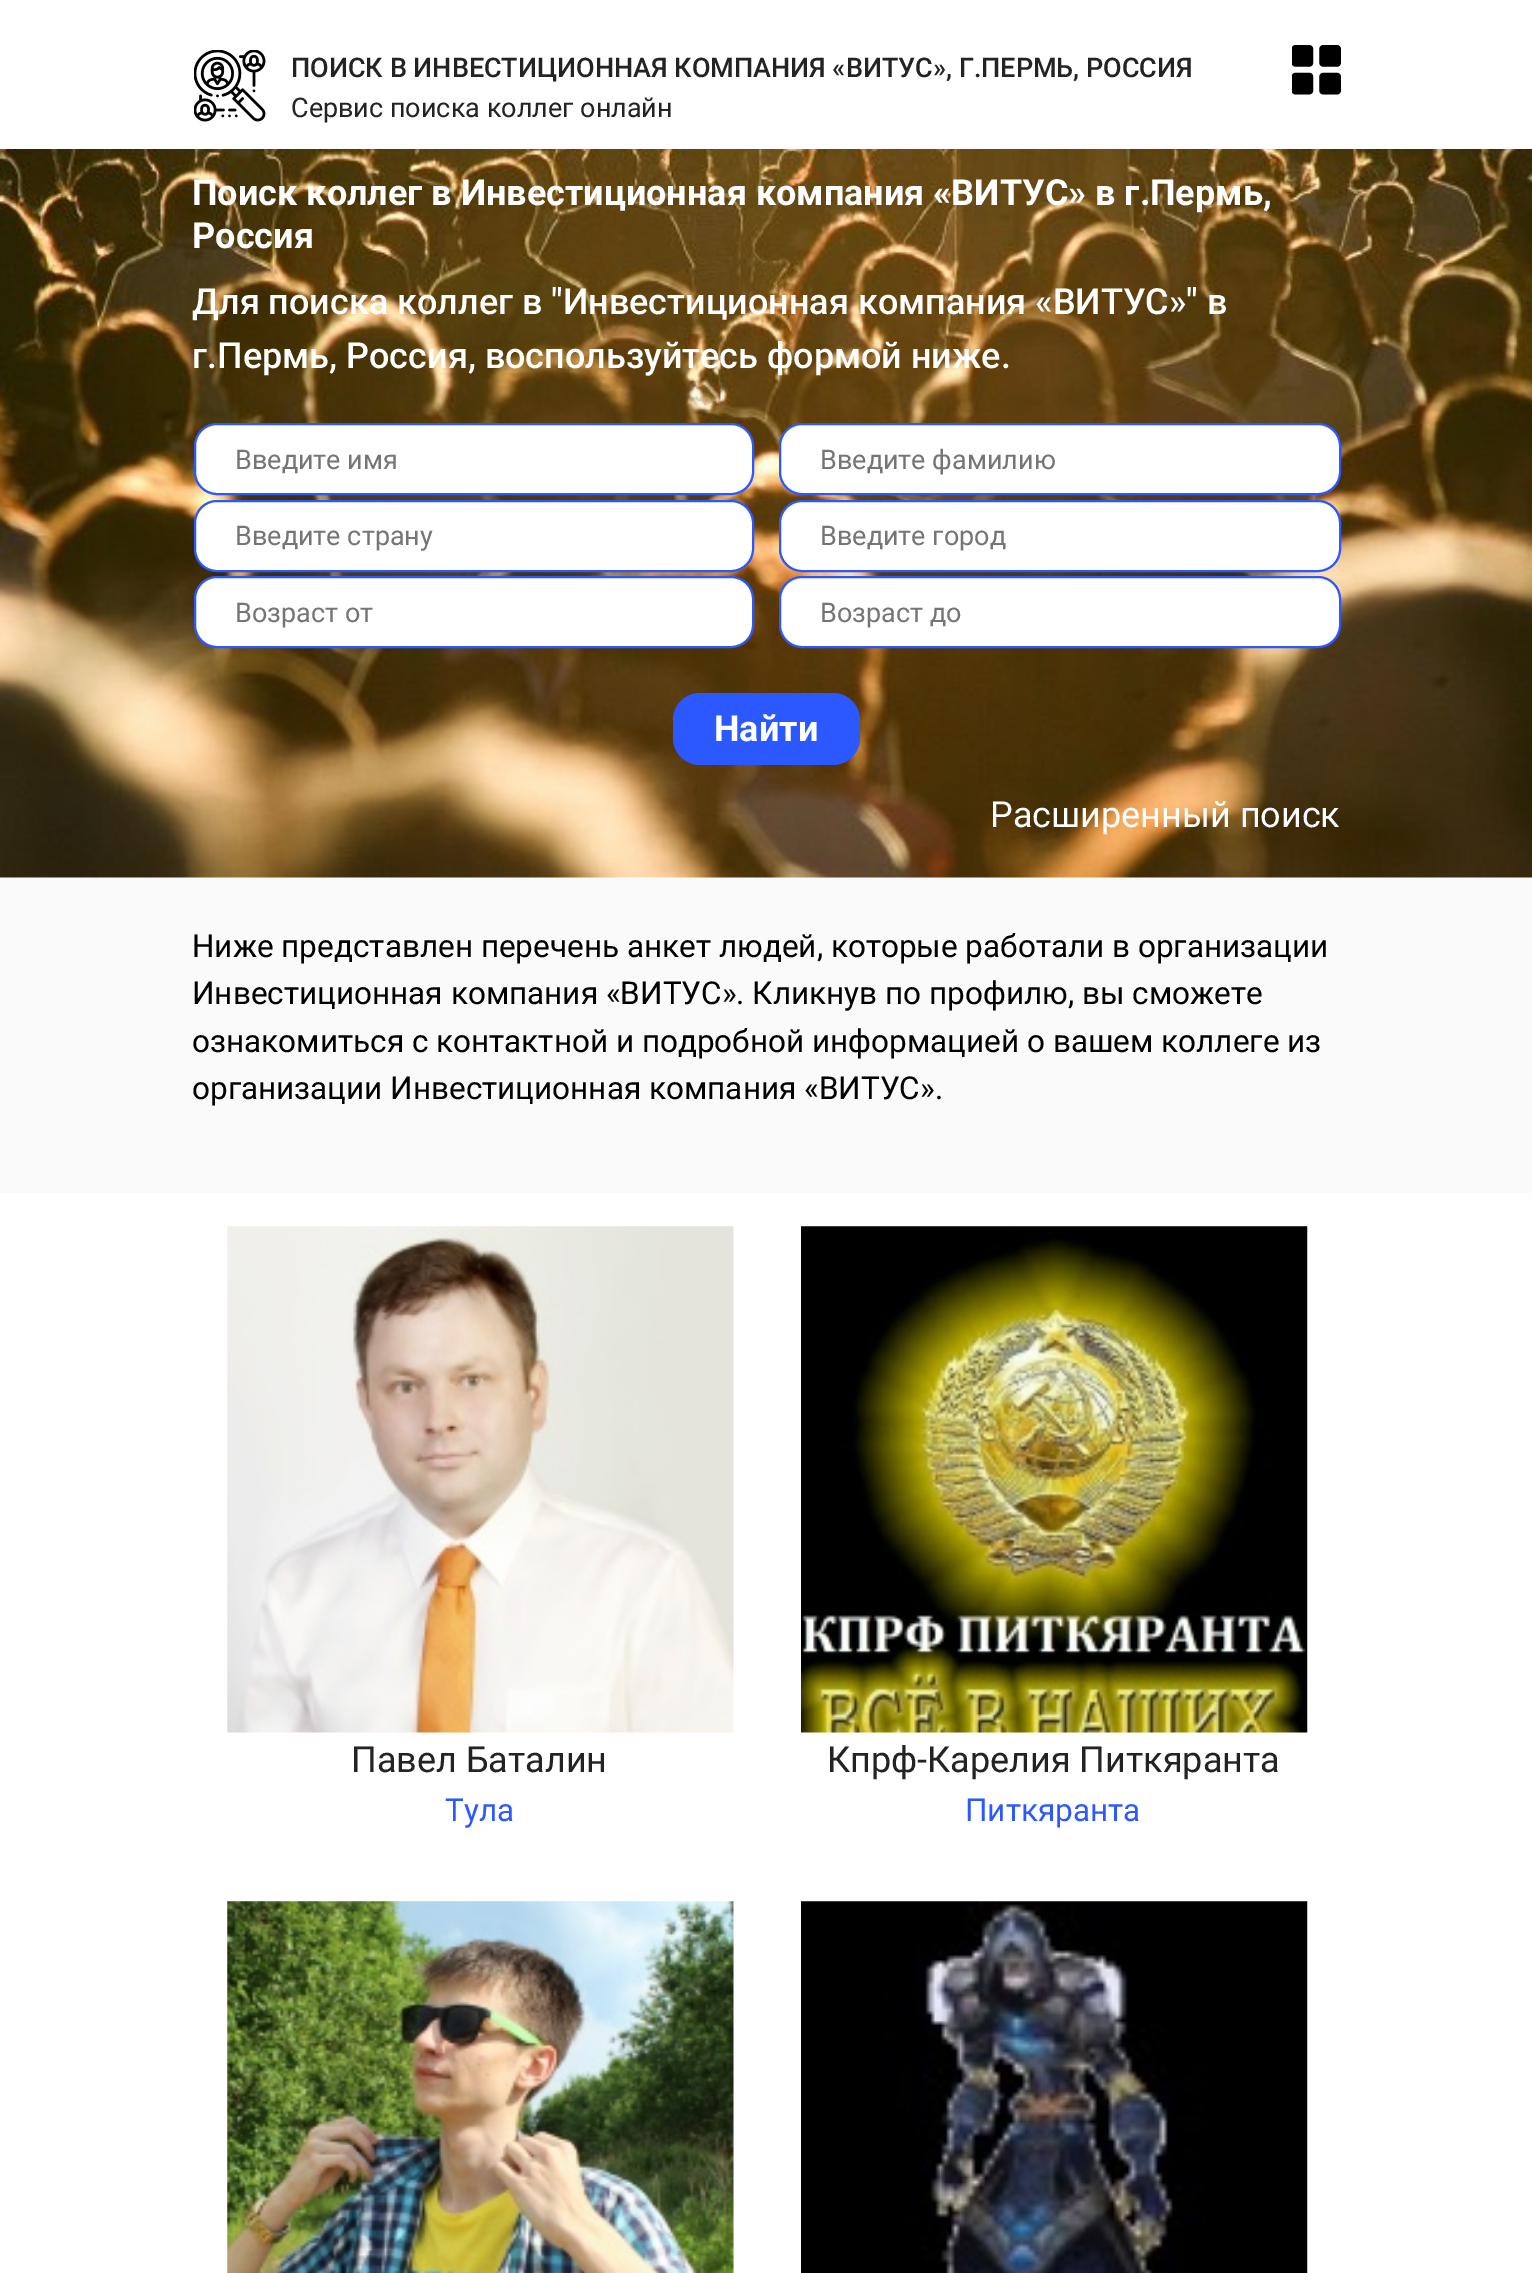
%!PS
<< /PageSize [1532 2273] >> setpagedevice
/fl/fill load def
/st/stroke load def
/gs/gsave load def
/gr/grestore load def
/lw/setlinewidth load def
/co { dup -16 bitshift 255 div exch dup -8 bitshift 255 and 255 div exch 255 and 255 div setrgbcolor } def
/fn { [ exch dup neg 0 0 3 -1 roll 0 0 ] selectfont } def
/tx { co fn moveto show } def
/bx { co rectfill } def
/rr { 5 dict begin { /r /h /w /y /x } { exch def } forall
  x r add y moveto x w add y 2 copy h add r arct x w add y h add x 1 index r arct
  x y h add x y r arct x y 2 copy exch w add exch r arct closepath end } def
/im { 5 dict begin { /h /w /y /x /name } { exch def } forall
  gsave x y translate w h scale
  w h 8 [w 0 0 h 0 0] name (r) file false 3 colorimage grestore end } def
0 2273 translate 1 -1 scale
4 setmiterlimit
0 0 1532 2273 16#FFFFFF bx
(media/1.raw) 0 149 1532 729 im
(media/2.raw) 194 50 72 72 im
(media/3.raw) 1292 45 49 50 im
195 424 558 70 22 rr gs fl gr
16#2B58FF co
2 lw
st
16#FFFFFF co
780 424 560 70 22 rr gs fl gr
16#2B58FF co
st
16#FFFFFF co
195 501 558 70 22 rr gs fl gr
16#2B58FF co
st
16#FFFFFF co
780 501 560 70 22 rr gs fl gr
16#2B58FF co
st
16#FFFFFF co
195 577 558 70 22 rr gs fl gr
16#2B58FF co
st
16#FFFFFF co
780 577 560 70 22 rr gs fl gr
16#2B58FF co
st
673 693 187 72 27 rr fl
0 878 1532 315 16#FAFAFA bx
(media/4.raw) 227 1226 507 507 im
(media/5.raw) 801 1226 507 507 im
(media/6.raw) 227 1901 507 372 im
(media/7.raw) 801 1901 507 372 im
(ПОИСК В ИНВЕСТИЦИОННАЯ КОМПАНИЯ «ВИТУС», Г.ПЕРМЬ, РОССИЯ) 291 77 /Roboto-Medium 27 16#232323 tx
(Сервис поиска коллег онлайн) 291 117 /Roboto-Regular 27 16#232323 tx
(Поиск коллег в Инвестиционная компания «ВИТУС» в г.Пермь,) 192 205 /Roboto-Bold 36 16#FFFFFF tx
(Россия) 192 248 /Roboto-Bold 36 16#FFFFFF tx
(Для поиска коллег в "Инвестиционная компания «ВИТУС»" в) 192 314 /Roboto-Medium 36 16#FFFFFF tx
(г.Пермь, Россия, воспользуйтесь формой ниже.) 192 368 /Roboto-Medium 36 16#FFFFFF tx
(Введите имя) 235 469 /Roboto-Regular 27 16#757575 tx
(Введите фамилию) 820 469 /Roboto-Regular 27 16#757575 tx
(Введите страну) 235 545 /Roboto-Regular 27 16#757575 tx
(Введите город) 820 545 /Roboto-Regular 27 16#757575 tx
(Возраст от) 235 622 /Roboto-Regular 27 16#757575 tx
(Возраст до) 820 622 /Roboto-Regular 27 16#757575 tx
(Найти) 714 741 /Roboto-Bold 36 16#FFFFFF tx
(Расширенный поиск) 990 827 /Roboto-Regular 36 16#FFFFFF tx
(Ниже представлен перечень анкет людей, которые работали в организации) 192 957 /Roboto-Regular 31.5 16#000000 tx
(Инвестиционная компания «ВИТУС». Кликнув по профилю, вы сможете) 192 1004 /Roboto-Regular 31.5 16#000000 tx
(ознакомиться с контактной и подробной информацией о вашем коллеге из) 192 1052 /Roboto-Regular 31.5 16#000000 tx
(организации Инвестиционная компания «ВИТУС».) 192 1099 /Roboto-Regular 31.5 16#000000 tx
(Павел Баталин) 351 1772 /Roboto-Regular 36 16#232323 tx
(Тула) 445 1821 /Roboto-Regular 31.5 16#2B58FF tx
(Кпрф-Карелия Питкяранта) 827 1772 /Roboto-Regular 36 16#232323 tx
(Питкяранта) 965 1821 /Roboto-Regular 31.5 16#2B58FF tx
showpage
